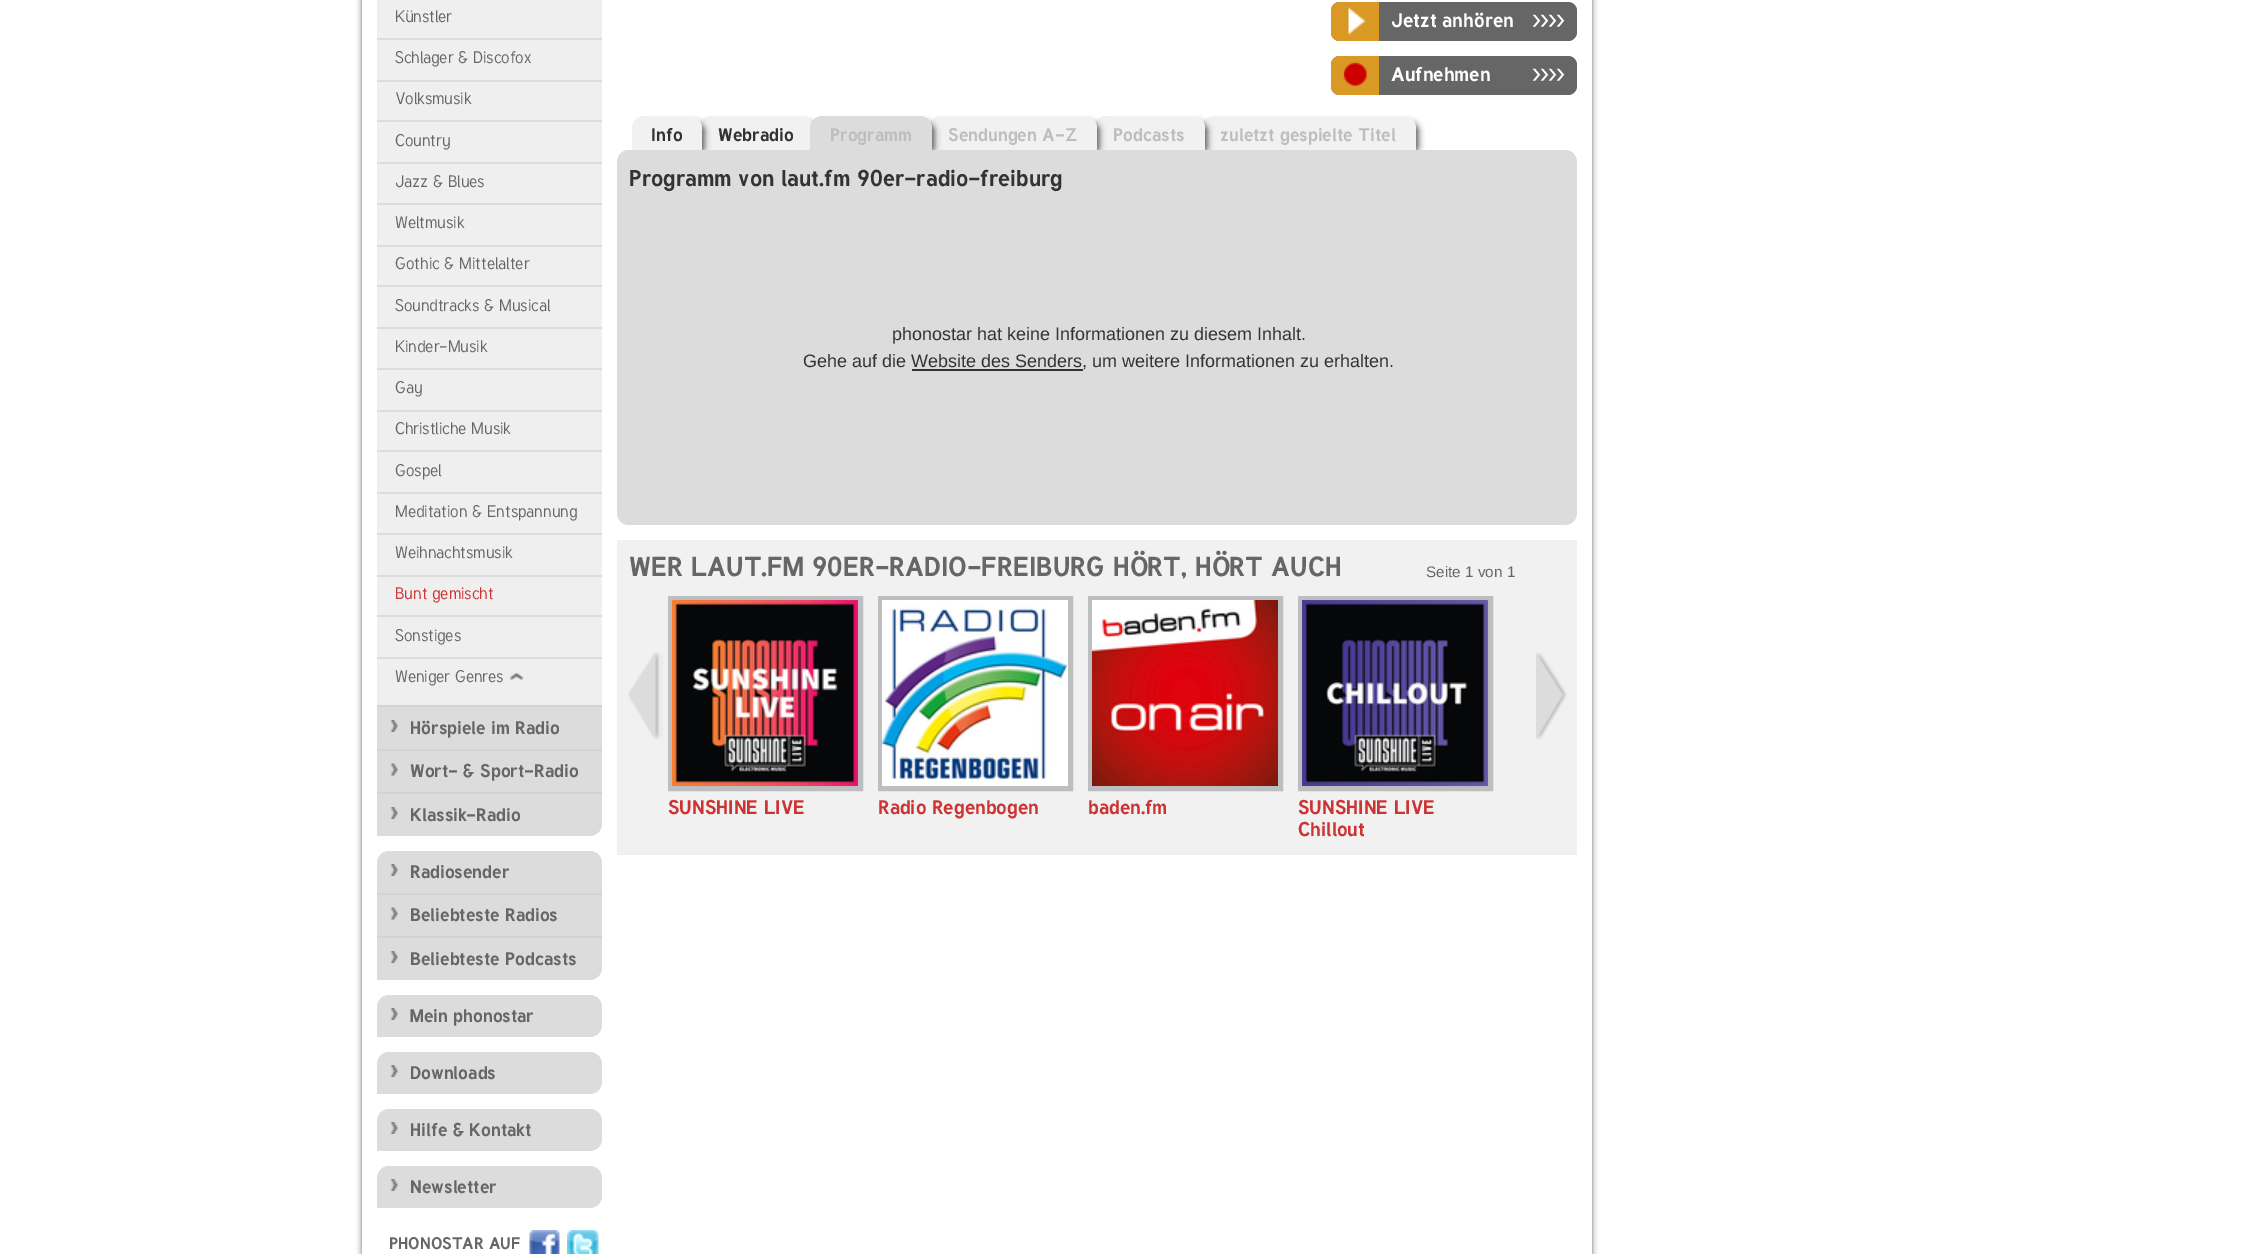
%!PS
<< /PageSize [2253 1254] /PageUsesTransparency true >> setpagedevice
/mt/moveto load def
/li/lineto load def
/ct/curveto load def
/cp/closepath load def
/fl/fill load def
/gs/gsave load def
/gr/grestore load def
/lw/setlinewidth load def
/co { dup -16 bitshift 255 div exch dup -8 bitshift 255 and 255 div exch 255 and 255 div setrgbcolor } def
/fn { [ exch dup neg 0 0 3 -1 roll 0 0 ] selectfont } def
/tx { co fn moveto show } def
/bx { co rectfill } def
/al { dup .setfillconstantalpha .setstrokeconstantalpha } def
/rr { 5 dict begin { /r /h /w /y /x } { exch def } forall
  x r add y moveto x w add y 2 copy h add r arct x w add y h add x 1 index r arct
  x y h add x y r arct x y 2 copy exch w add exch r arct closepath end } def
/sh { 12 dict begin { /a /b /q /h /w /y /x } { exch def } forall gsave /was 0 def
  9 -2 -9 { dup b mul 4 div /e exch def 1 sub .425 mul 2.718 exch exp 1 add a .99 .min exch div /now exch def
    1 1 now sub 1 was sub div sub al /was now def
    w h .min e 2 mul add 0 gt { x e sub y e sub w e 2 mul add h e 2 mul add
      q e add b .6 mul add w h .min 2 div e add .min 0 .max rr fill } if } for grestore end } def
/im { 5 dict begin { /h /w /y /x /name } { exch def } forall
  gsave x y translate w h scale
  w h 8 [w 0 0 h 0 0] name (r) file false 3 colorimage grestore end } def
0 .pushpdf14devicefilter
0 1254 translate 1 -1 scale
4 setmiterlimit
0 0 2253 1254 16#FFFFFF bx
16#666666 co
362 -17 1230 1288 8 3 1 sh
362 0 1230 1254 16#FFFFFF bx
16#DCDCDC co
389 -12 mt 590 -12 li 596.5 -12 602 -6.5 602 0 ct 602 824 li 602 830.5 596.5 836 590 836 ct 377 836 li 377 0 li 377 -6.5 382.5 -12 389 -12 ct cp fl
377 705 225 2 16#D3D3D3 bx
377 0 225 705 16#EFEFEF bx
377 38 225 2 16#DCDCDC bx
377 80 225 2 16#DCDCDC bx
377 120 225 2 16#DCDCDC bx
377 162 225 2 16#DCDCDC bx
377 203 225 2 16#DCDCDC bx
377 245 225 2 16#DCDCDC bx
377 285 225 2 16#DCDCDC bx
377 327 225 2 16#DCDCDC bx
377 368 225 2 16#DCDCDC bx
377 410 225 2 16#DCDCDC bx
377 450 225 2 16#DCDCDC bx
377 492 225 2 16#DCDCDC bx
377 533 225 2 16#DCDCDC bx
377 575 225 2 16#DCDCDC bx
377 615 225 2 16#DCDCDC bx
377 657 225 2 16#DCDCDC bx
(media/1.raw) 510 672 14 9 im
377 749 225 2 16#D3D3D3 bx
(media/2.raw) 390 720 8 12 im
377 792 225 2 16#D3D3D3 bx
(media/3.raw) 390 763 8 13 im
(media/2.raw) 390 807 8 12 im
16#DCDCDC co
389 851 mt 590 851 li 596.5 851 602 856.5 602 863 ct 602 968 li 602 974.5 596.5 980 590 980 ct 377 980 li 377 863 li 377 856.5 382.5 851 389 851 ct cp fl
377 893 225 2 16#D3D3D3 bx
(media/2.raw) 390 864 8 12 im
377 936 225 2 16#D3D3D3 bx
(media/3.raw) 390 907 8 13 im
(media/2.raw) 390 951 8 12 im
16#DCDCDC co
389 995 mt 590 995 li 596.5 995 602 1000.5 602 1007 ct 602 1025 li 602 1031.5 596.5 1037 590 1037 ct 377 1037 li 377 1007 li 377 1000.5 382.5 995 389 995 ct cp fl
(media/2.raw) 390 1008 8 12 im
389 1052 mt 590 1052 li 596.5 1052 602 1057.5 602 1064 ct 602 1082 li 602 1088.5 596.5 1094 590 1094 ct 377 1094 li 377 1064 li 377 1057.5 382.5 1052 389 1052 ct cp fl
(media/2.raw) 390 1065 8 12 im
389 1109 mt 590 1109 li 596.5 1109 602 1114.5 602 1121 ct 602 1139 li 602 1145.5 596.5 1151 590 1151 ct 377 1151 li 377 1121 li 377 1114.5 382.5 1109 389 1109 ct cp fl
(media/2.raw) 390 1122 8 12 im
389 1166 mt 590 1166 li 596.5 1166 602 1171.5 602 1178 ct 602 1196 li 602 1202.5 596.5 1208 590 1208 ct 377 1208 li 377 1178 li 377 1171.5 382.5 1166 389 1166 ct cp fl
(media/2.raw) 390 1179 8 12 im
(media/4.raw) 529 1230 31 24 im
(media/5.raw) 567 1230 32 24 im
16#666666 co
1331 2 246 39 9 rr fl
16#DA9925 co
1340 2 mt 1379 2 li 1379 41 li 1340 41 li 1335 41 1331 37 1331 32 ct 1331 11 li 1331 6 1335 2 1340 2 ct cp fl
(media/6.raw) 1348 7 18 28 im
16#666666 co
1331 56 246 39 9 rr fl
16#DA9925 co
1340 56 mt 1379 56 li 1379 95 li 1340 95 li 1335 95 1331 91 1331 86 ct 1331 65 li 1331 60 1335 56 1340 56 ct cp fl
(media/7.raw) 1343 62 24 24 im
16#DCDCDC co
617 150 960 375 12 rr fl
gs
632 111 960 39 rectclip
16#666666 co
708 122 108 33 9 3 1 sh
gr
16#F1F1F1 co
711 116 mt 801 116 li 807.5 116 813 121.5 813 128 ct 813 150 li 699 150 li 699 128 li 699 121.5 704.5 116 711 116 ct cp fl
gs
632 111 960 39 rectclip
16#666666 co
641 122 64 33 9 3 1 sh
gr
644 116 mt 690 116 li 696.5 116 702 121.5 702 128 ct 702 150 li 632 150 li 632 128 li 632 121.5 637.5 116 644 116 ct cp fl
gs
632 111 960 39 rectclip
16#666666 co
1211 122 208 33 9 3 1 sh
gr
1214 116 mt 1404 116 li 1410.5 116 1416 121.5 1416 128 ct 1416 150 li 1202 150 li 1202 128 li 1202 121.5 1207.5 116 1214 116 ct cp fl
gs
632 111 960 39 rectclip
16#666666 co
1103 122 105 33 9 3 1 sh
gr
1106 116 mt 1193 116 li 1199.5 116 1205 121.5 1205 128 ct 1205 150 li 1094 150 li 1094 128 li 1094 121.5 1099.5 116 1106 116 ct cp fl
gs
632 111 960 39 rectclip
16#666666 co
938 122 162 33 9 3 1 sh
gr
941 116 mt 1085 116 li 1091.5 116 1097 121.5 1097 128 ct 1097 150 li 929 150 li 929 128 li 929 121.5 934.5 116 941 116 ct cp fl
gs
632 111 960 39 rectclip
16#666666 co
819 122 116 33 9 3 1 sh
gr
16#DCDCDC co
822 116 mt 920 116 li 926.5 116 932 121.5 932 128 ct 932 150 li 810 150 li 810 128 li 810 121.5 815.5 116 822 116 ct cp fl
912 369 171 2 16#333333 bx
617 540 960 315 16#F1F1F1 bx
(media/8.raw) 628 652 35 88 im
(media/9.raw) 1536 652 31 88 im
16#BCBEC0 co
5 lw
670.5 598.5 190 190 rectstroke
(media/10.raw) 672 600 186 186 im
880.5 598.5 190 190 rectstroke
(media/11.raw) 882 600 186 186 im
1090.5 598.5 190 190 rectstroke
(media/12.raw) 1092 600 186 186 im
1300.5 598.5 190 190 rectstroke
(media/13.raw) 1302 600 186 186 im
(Künstler) 395 22 /Tuffy-Regular 16.5 16#666666 tx
(Schlager & Discofox) 395 63 /Tuffy-Regular 16.5 16#666666 tx
(Volksmusik) 395 104 /Tuffy-Regular 16.5 16#666666 tx
(Country) 395 146 /Tuffy-Regular 16.5 16#666666 tx
(Jazz & Blues) 395 187 /Tuffy-Regular 16.5 16#666666 tx
(Weltmusik) 395 228 /Tuffy-Regular 16.5 16#666666 tx
(Gothic & Mittelalter) 395 269 /Tuffy-Regular 16.5 16#666666 tx
(Soundtracks & Musical) 395 311 /Tuffy-Regular 16.5 16#666666 tx
(Kinder-Musik) 395 352 /Tuffy-Regular 16.5 16#666666 tx
(Gay) 395 393 /Tuffy-Regular 16.5 16#666666 tx
(Christliche Musik) 395 434 /Tuffy-Regular 16.5 16#666666 tx
(Gospel) 395 476 /Tuffy-Regular 16.5 16#666666 tx
(Meditation & Entspannung) 395 517 /Tuffy-Regular 16.5 16#666666 tx
(Weihnachtsmusik) 395 558 /Tuffy-Regular 16.5 16#666666 tx
(Bunt gemischt) 395 599 /Tuffy-Regular 16.5 16#CC3333 tx
(Sonstiges) 395 641 /Tuffy-Regular 16.5 16#666666 tx
(Weniger Genres) 395 682 /Tuffy-Regular 16.5 16#666666 tx
(Hörspiele im Radio) 410 734 /Tuffy-Bold 18 16#666666 tx
(Wort- & Sport-Radio) 410 777 /Tuffy-Bold 18 16#666666 tx
(Klassik-Radio) 410 821 /Tuffy-Bold 18 16#666666 tx
(Radiosender) 410 878 /Tuffy-Bold 18 16#666666 tx
(Beliebteste Radios) 410 921 /Tuffy-Bold 18 16#666666 tx
(Beliebteste Podcasts) 410 965 /Tuffy-Bold 18 16#666666 tx
(Mein phonostar) 410 1022 /Tuffy-Bold 18 16#666666 tx
(Downloads) 410 1079 /Tuffy-Bold 18 16#666666 tx
(Hilfe & Kontakt) 410 1136 /Tuffy-Bold 18 16#666666 tx
(Newsletter) 410 1193 /Tuffy-Bold 18 16#666666 tx
(PHONOSTAR AUF) 389 1249 /Tuffy-Bold 16.5 16#666666 tx
(Jetzt anhören) 1391 27 /Tuffy-Bold 19.5 16#FFFFFF tx
(››››) 1532 27 /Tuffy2-Bold 19.5 16#FFFFFF tx
(Aufnehmen) 1391 81 /Tuffy-Bold 19.5 16#FFFFFF tx
(››››) 1532 81 /Tuffy2-Bold 19.5 16#FFFFFF tx
(Info) 651 141 /Tuffy-Bold 18 16#333333 tx
(Webradio) 718 141 /Tuffy-Bold 18 16#333333 tx
(Programm) 830 141 /Tuffy-Bold 18 16#BCBEC0 tx
(Sendungen A-Z) 948 141 /Tuffy-Bold 18 16#BCBEC0 tx
(Podcasts) 1113 141 /Tuffy-Bold 18 16#BCBEC0 tx
(zuletzt gespielte Titel) 1220 141 /Tuffy-Bold 18 16#BCBEC0 tx
(Programm von laut.fm 90er-radio-freiburg) 629 186 /Tuffy-Bold 22.5 16#333333 tx
(phonostar hat keine Informationen zu diesem Inhalt.) 892 340 /LiberationSans-Regular 18 16#333333 tx
(Gehe auf die Website des Senders, um weitere Informationen zu erhalten.) 803 367 /LiberationSans-Regular 18 16#333333 tx
(WER LAUT.FM 90ER-RADIO-FREIBURG HÖRT, HÖRT AUCH) 629 576 /Tuffy-Bold 27 16#666666 tx
(Seite 1 von 1) 1426 577 /LiberationSans-Regular 15.25 16#666666 tx
(SUNSHINE LIVE) 668 814 /Tuffy-Bold 19.5 16#CC3333 tx
(Radio Regenbogen) 878 814 /Tuffy-Bold 19.5 16#CC3333 tx
(baden.fm) 1088 814 /Tuffy-Bold 19.5 16#CC3333 tx
(SUNSHINE LIVE) 1298 814 /Tuffy-Bold 19.5 16#CC3333 tx
(Chillout) 1298 836 /Tuffy-Bold 19.5 16#CC3333 tx
.poppdf14devicefilter showpage
